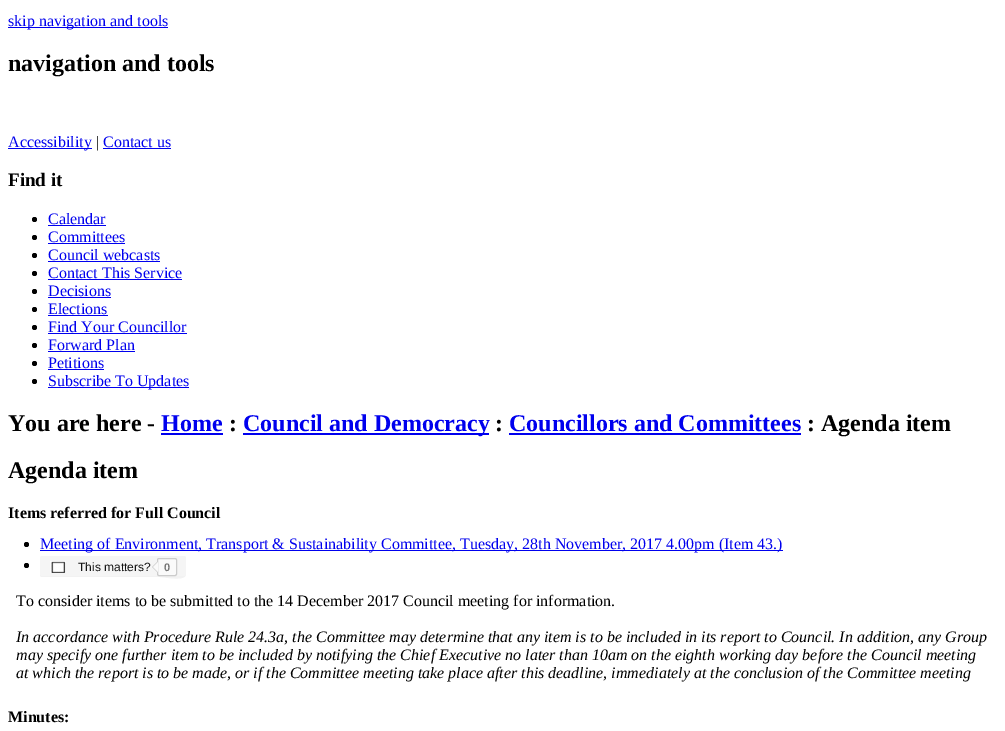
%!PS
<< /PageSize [1005 731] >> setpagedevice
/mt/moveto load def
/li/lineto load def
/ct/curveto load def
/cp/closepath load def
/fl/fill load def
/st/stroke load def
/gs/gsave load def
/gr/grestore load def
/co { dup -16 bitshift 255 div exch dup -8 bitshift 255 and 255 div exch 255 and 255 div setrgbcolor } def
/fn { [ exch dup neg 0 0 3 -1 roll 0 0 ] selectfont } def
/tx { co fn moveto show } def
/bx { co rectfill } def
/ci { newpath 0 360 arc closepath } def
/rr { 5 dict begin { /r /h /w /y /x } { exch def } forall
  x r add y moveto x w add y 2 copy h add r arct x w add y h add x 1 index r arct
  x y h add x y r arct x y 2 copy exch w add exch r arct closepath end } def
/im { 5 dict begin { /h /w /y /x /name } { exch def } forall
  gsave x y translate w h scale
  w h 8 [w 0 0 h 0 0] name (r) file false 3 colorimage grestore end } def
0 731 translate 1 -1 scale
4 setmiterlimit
0 0 1005 731 16#FFFFFF bx
8 27 160 1 16#0000EE bx
8 148 84 1 16#0000EE bx
103 148 68 1 16#0000EE bx
16#000000 co
34.5 219.5 2.5 ci fl
48 225 58 1 16#0000EE bx
16#000000 co
34.5 237.5 2.5 ci fl
48 243 77 1 16#0000EE bx
16#000000 co
34.5 255.5 2.5 ci fl
48 261 112 1 16#0000EE bx
16#000000 co
34.5 273.5 2.5 ci fl
48 279 134 1 16#0000EE bx
16#000000 co
34.5 291.5 2.5 ci fl
48 297 63 1 16#0000EE bx
16#000000 co
34.5 309.5 2.5 ci fl
48 315 60 1 16#0000EE bx
16#000000 co
34.5 327.5 2.5 ci fl
48 333 139 1 16#0000EE bx
16#000000 co
34.5 345.5 2.5 ci fl
48 351 87 1 16#0000EE bx
16#000000 co
34.5 363.5 2.5 ci fl
48 369 56 1 16#0000EE bx
16#000000 co
34.5 381.5 2.5 ci fl
48 387 141 1 16#0000EE bx
161 433 62 2 16#0000EE bx
243 433 246 2 16#0000EE bx
509 433 292 2 16#0000EE bx
16#000000 co
26.5 544.5 2.5 ci fl
40 550 743 1 16#0000EE bx
16#000000 co
26.5 565.5 2.5 ci fl
16#F2F2F2 co
40 574 mt 40 575 40 576 41 577 ct 160 577 li 164 577 186 582 186 574 ct 186 575 185 576 184 576 ct 42 576 li 41 576 40 575 40 574 ct cp fl
16#F5F5F5 co
40 556 146 20 2 rr fl
(media/1.raw) 50 561 16 12 im
16#FAFAFA co
157.5 558.5 19 17 1.5 rr gs fl gr
16#CCCCCC co
st
158 561 mt 158 573 li 152 567 li cp fl
16#FAFAFA co
158 562 mt 158 572 li 153 567 li cp fl
(skip navigation and tools) 8 26 /LiberationSerif-Regular 16 16#0000EE tx
(navigation and tools) 8 71 /LiberationSerif-Bold 24 16#000000 tx
(Accessibility) 8 147 /LiberationSerif-Regular 16 16#0000EE tx
(|) 96 147 /LiberationSerif-Regular 16 16#000000 tx
(Contact us) 103 147 /LiberationSerif-Regular 16 16#0000EE tx
(Find it) 8 186 /LiberationSerif-Bold 19 16#000000 tx
(Calendar) 48 224 /LiberationSerif-Regular 16 16#0000EE tx
(Committees) 48 242 /LiberationSerif-Regular 16 16#0000EE tx
(Council webcasts) 48 260 /LiberationSerif-Regular 16 16#0000EE tx
(Contact This Service) 48 278 /LiberationSerif-Regular 16 16#0000EE tx
(Decisions) 48 296 /LiberationSerif-Regular 16 16#0000EE tx
(Elections) 48 314 /LiberationSerif-Regular 16 16#0000EE tx
(Find Your Councillor) 48 332 /LiberationSerif-Regular 16 16#0000EE tx
(Forward Plan) 48 350 /LiberationSerif-Regular 16 16#0000EE tx
(Petitions) 48 368 /LiberationSerif-Regular 16 16#0000EE tx
(Subscribe To Updates) 48 386 /LiberationSerif-Regular 16 16#0000EE tx
(You are here -) 8 431 /LiberationSerif-Bold 24 16#000000 tx
(Home) 161 431 /LiberationSerif-Bold 24 16#0000EE tx
(:) 229 431 /LiberationSerif-Bold 24 16#000000 tx
(Council and Democracy) 243 431 /LiberationSerif-Bold 24 16#0000EE tx
(:) 495 431 /LiberationSerif-Bold 24 16#000000 tx
(Councillors and Committees) 509 431 /LiberationSerif-Bold 24 16#0000EE tx
(: Agenda item) 807 431 /LiberationSerif-Bold 24 16#000000 tx
(Agenda item) 8 478 /LiberationSerif-Bold 24 16#000000 tx
(Items referred for Full Council) 8 518 /LiberationSerif-Bold 16 16#000000 tx
(Meeting of Environment, Transport & Sustainability Committee, Tuesday, 28th November, 2017 4.00pm \(Item 43.\)) 40 549 /LiberationSerif-Regular 16 16#0000EE tx
(This matters?) 78 571 /LiberationSans-Regular 12 16#141414 tx
(0) 164 571 /LiberationSans-Bold 11 16#777777 tx
(To consider items to be submitted to the 14 December 2017 Council meeting for information.) 16 606 /LiberationSerif-Regular 16 16#000000 tx
(In accordance with Procedure Rule 24.3a, the Committee may determine that any item is to be included in its report to Council. In addition, any Group) 16 642 /LiberationSerif-Italic 16 16#000000 tx
(may specify one further item to be included by notifying the Chief Executive no later than 10am on the eighth working day before the Council meeting) 16 660 /LiberationSerif-Italic 16 16#000000 tx
(at which the report is to be made, or if the Committee meeting take place after this deadline, immediately at the conclusion of the Committee meeting) 16 678 /LiberationSerif-Italic 16 16#000000 tx
(Minutes:) 8 722 /LiberationSerif-Bold 16 16#000000 tx
showpage
